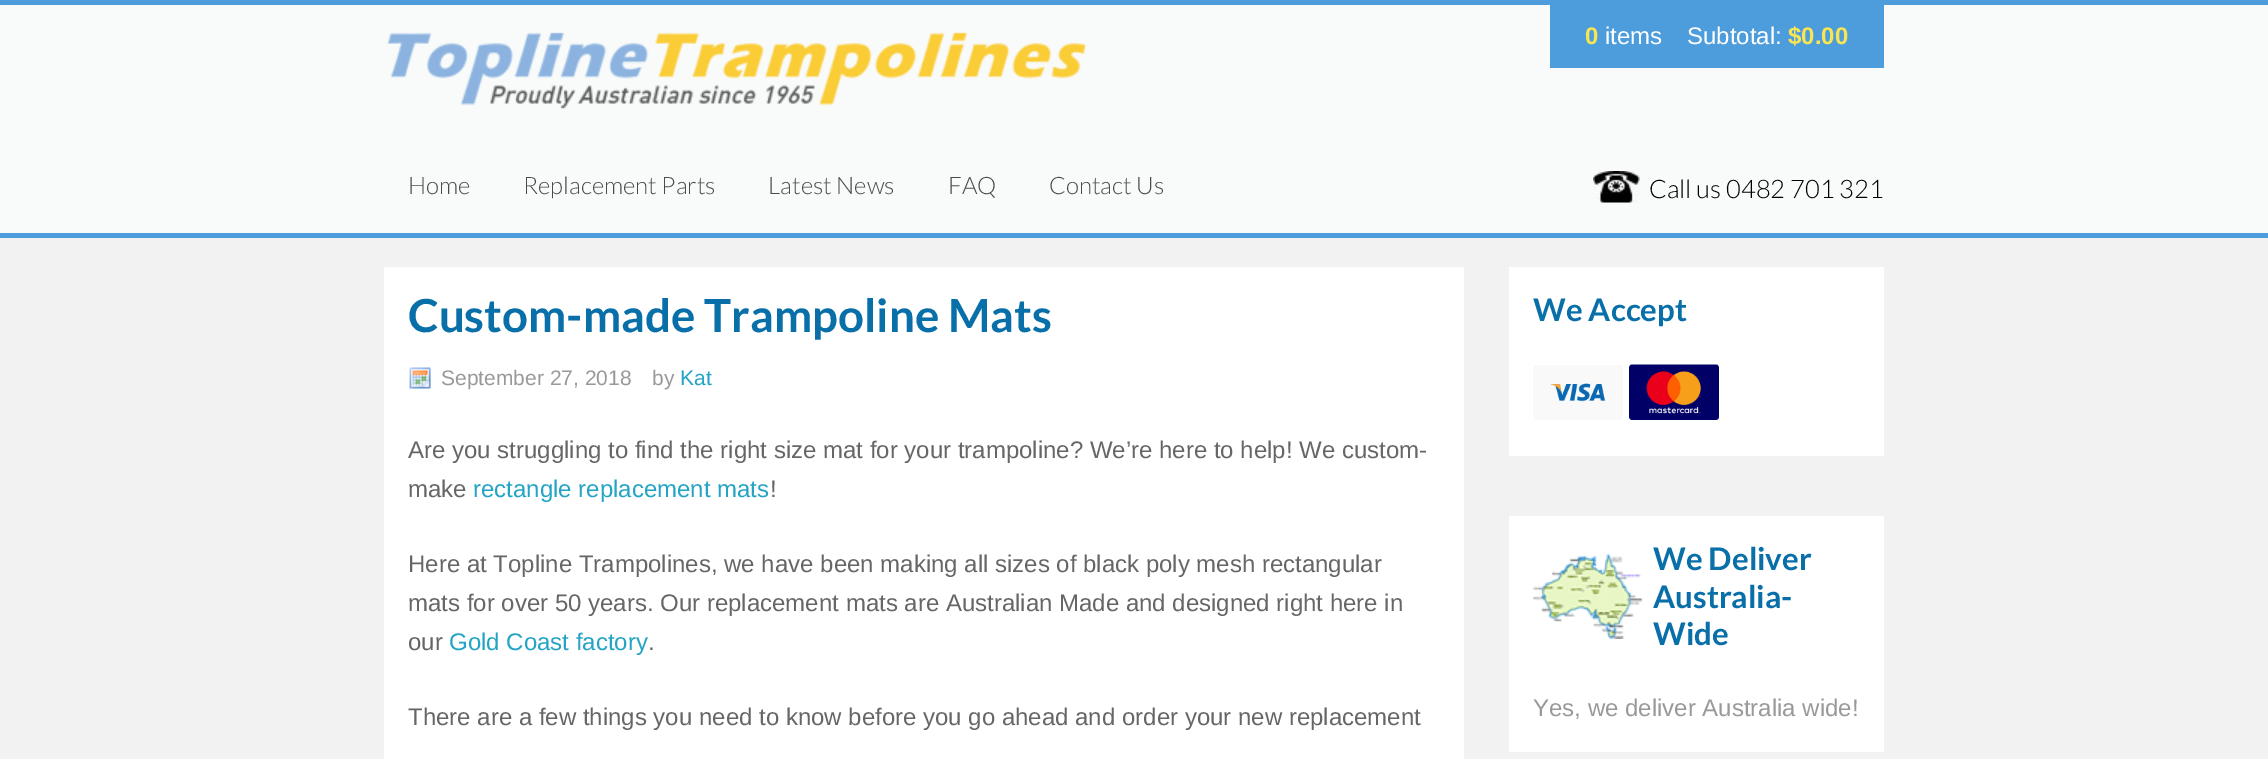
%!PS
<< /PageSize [2268 759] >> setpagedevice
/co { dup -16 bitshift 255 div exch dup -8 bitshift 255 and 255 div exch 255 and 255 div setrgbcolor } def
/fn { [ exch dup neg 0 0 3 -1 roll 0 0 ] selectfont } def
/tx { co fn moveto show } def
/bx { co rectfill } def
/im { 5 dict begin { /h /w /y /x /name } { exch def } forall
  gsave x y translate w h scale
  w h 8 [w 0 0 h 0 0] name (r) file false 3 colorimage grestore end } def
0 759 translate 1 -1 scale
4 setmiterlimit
0 0 2268 759 16#F2F2F2 bx
0 5 2268 228 16#F9FBFA bx
0 0 2268 5 16#4D9DDD bx
(media/1.raw) 387 32 700 77 im
1550 5 334 63 16#4D9DDD bx
0 233 2268 5 16#4D9CDC bx
(media/2.raw) 1593 171 47 32 im
384 267 1080 492 16#FFFFFF bx
(media/3.raw) 409 367 22 22 im
1509 267 375 189 16#FFFFFF bx
(media/4.raw) 1533 365 90 55 im
(media/5.raw) 1629 364 90 56 im
1509 516 375 236 16#FFFFFF bx
(media/6.raw) 1533 553 110 86 im
(0) 1585 44 /LiberationSans-Bold 24 16#F8E551 tx
(items) 1605 44 /LiberationSans-Regular 24 16#FFFFFF tx
(Subtotal:) 1687 44 /LiberationSans-Regular 24 16#FFFFFF tx
($0.00) 1788 44 /LiberationSans-Bold 24 16#F8E551 tx
(Home) 408 194 /Lato-Light 24 16#4A4A4A tx
(Replacement Parts) 523 194 /Lato-Light 24 16#4A4A4A tx
(Latest News) 768 194 /Lato-Light 24 16#4A4A4A tx
(FAQ) 948 194 /Lato-Light 24 16#4A4A4A tx
(Contact Us) 1049 194 /Lato-Light 24 16#4A4A4A tx
(Call us 0482 701 321) 1649 198 /Lato-Light 25.5 16#000000 tx
(Custom-made Trampoline Mats) 408 332 /Lato-Bold 45.6 16#086FA9 tx
(September 27, 2018) 441 385 /LiberationSans-Regular 21 16#999999 tx
(by) 652 385 /LiberationSans-Regular 21 16#999999 tx
(Kat) 680 385 /LiberationSans-Regular 21 16#23A4C4 tx
(Are you struggling to find the right size mat for your trampoline? We’re here to help! We custom-) 408 458 /LiberationSans-Regular 24 16#666666 tx
(make) 408 497 /LiberationSans-Regular 24 16#666666 tx
(rectangle replacement mats) 473 497 /LiberationSans-Regular 24 16#23A4C4 tx
(!) 770 497 /LiberationSans-Regular 24 16#666666 tx
(Here at Topline Trampolines, we have been making all sizes of black poly mesh rectangular) 408 572 /LiberationSans-Regular 24 16#666666 tx
(mats for over 50 years. Our replacement mats are Australian Made and designed right here in) 408 611 /LiberationSans-Regular 24 16#666666 tx
(our) 408 650 /LiberationSans-Regular 24 16#666666 tx
(Gold Coast factory) 449 650 /LiberationSans-Regular 24 16#23A4C4 tx
(.) 648 650 /LiberationSans-Regular 24 16#666666 tx
(There are a few things you need to know before you go ahead and order your new replacement) 408 725 /LiberationSans-Regular 24 16#666666 tx
(We Accept) 1533 321 /Lato-Bold 31.25 16#086FA9 tx
(We Deliver) 1653 570 /Lato-Bold 31.25 16#086FA9 tx
(Australia-) 1653 608 /Lato-Bold 31.25 16#086FA9 tx
(Wide) 1653 645 /Lato-Bold 31.25 16#086FA9 tx
(Yes, we deliver Australia wide!) 1533 716 /LiberationSans-Regular 24 16#999999 tx
showpage
